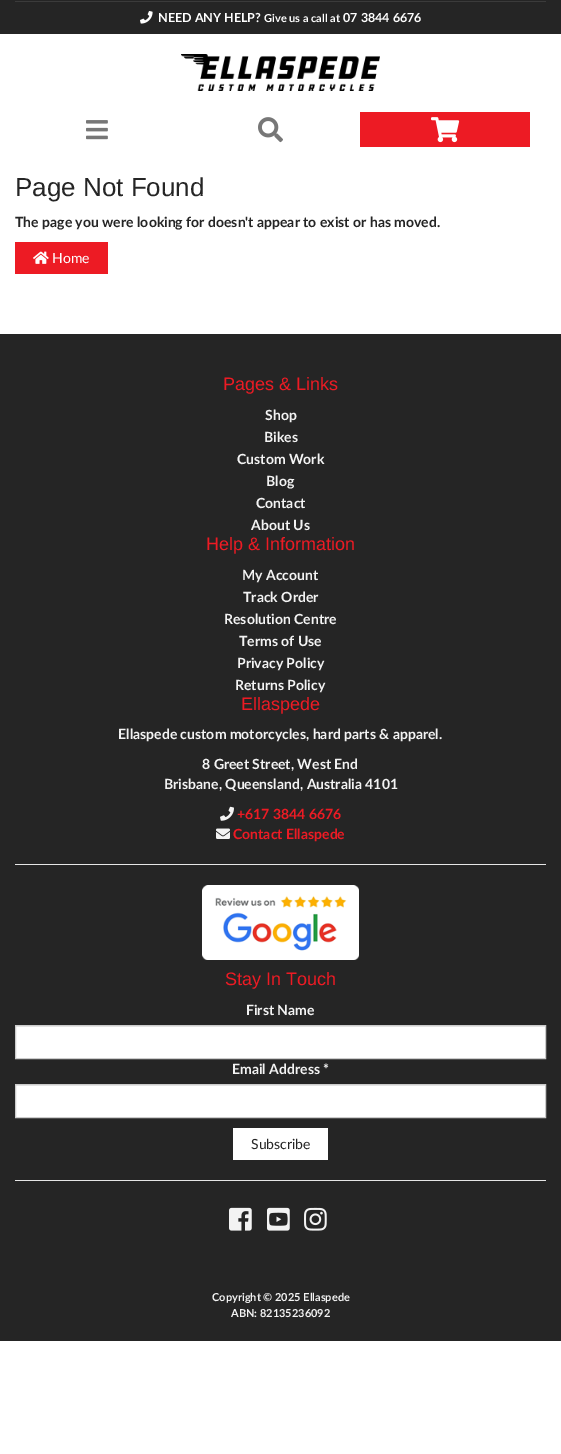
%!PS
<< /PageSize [561 1454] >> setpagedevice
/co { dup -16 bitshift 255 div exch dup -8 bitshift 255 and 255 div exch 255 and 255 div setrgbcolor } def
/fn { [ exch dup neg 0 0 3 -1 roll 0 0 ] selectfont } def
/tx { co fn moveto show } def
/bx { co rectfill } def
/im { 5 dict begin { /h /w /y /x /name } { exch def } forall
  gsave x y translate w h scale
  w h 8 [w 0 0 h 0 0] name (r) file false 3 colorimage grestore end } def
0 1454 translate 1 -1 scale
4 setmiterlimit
0 0 561 1454 16#FFFFFF bx
0 0 561 34 16#252525 bx
15 1 531 1 16#3B3B3B bx
(media/1.raw) 140 11 13 13 im
(media/2.raw) 181 54 199 37 im
(media/3.raw) 86 120 22 20 im
(media/4.raw) 258 117 25 26 im
360 112 170 35 16#ED1B24 bx
(media/5.raw) 431 117 29 26 im
15 242 93 32 16#ED1B24 bx
(media/6.raw) 33 251 16 13 im
0 334 561 1007 16#252525 bx
(media/7.raw) 220 806 14 15 im
(media/8.raw) 216 828 14 11 im
15 864 531 1 16#E6E6E6 bx
(media/9.raw) 202 885 157 75 im
16 1027 529 31 16#FFFFFF bx
16 1026 529 1 16#ECECEC bx
16#CCCCCC co
15.5 1025.5 530 33 rectstroke
16 1086 529 31 16#FFFFFF bx
16 1085 529 1 16#ECECEC bx
16#CCCCCC co
15.5 1084.5 530 33 rectstroke
233 1128 95 32 16#FFFFFF bx
15 1180 531 1 16#E6E6E6 bx
(media/10.raw) 229 1207 23 24 im
(media/11.raw) 267 1207 23 24 im
(media/12.raw) 304 1207 23 24 im
(NEED ANY HELP?) 158 22 /Lato-Bold 12.5 16#FFFFFF tx
(Give us a call at) 264 22 /Lato-Bold 11 16#FFFFFF tx
(07 3844 6676) 343 22 /Lato-Bold 12.5 16#FFFFFF tx
(Page Not Found) 15 196 /LiberationSans-Regular 26 16#252525 tx
(The page you were looking for doesn't appear to exist or has moved.) 15 227 /Lato-Bold 14 16#252525 tx
(Home) 52 263 /Lato-Regular 14 16#FFFFFF tx
(Pages & Links) 223 390 /LiberationSans-Regular 18 16#ED1B24 tx
(Shop) 265 420 /Lato-Bold 14 16#F3F3F3 tx
(Bikes) 264 442 /Lato-Bold 14 16#F3F3F3 tx
(Custom Work) 237 464 /Lato-Bold 14 16#F3F3F3 tx
(Blog) 266 486 /Lato-Bold 14 16#F3F3F3 tx
(Contact) 256 508 /Lato-Bold 14 16#F3F3F3 tx
(About Us) 251 530 /Lato-Bold 14 16#F3F3F3 tx
(Help & Information) 206 550 /LiberationSans-Regular 18 16#ED1B24 tx
(My Account) 242 580 /Lato-Bold 14 16#F3F3F3 tx
(Track Order) 243 602 /Lato-Bold 14 16#F3F3F3 tx
(Resolution Centre) 224 624 /Lato-Bold 14 16#F3F3F3 tx
(Terms of Use) 239 646 /Lato-Bold 14 16#F3F3F3 tx
(Privacy Policy) 237 668 /Lato-Bold 14 16#F3F3F3 tx
(Returns Policy) 235 690 /Lato-Bold 14 16#F3F3F3 tx
(Ellaspede) 241 710 /LiberationSans-Regular 18 16#ED1B24 tx
(Ellaspede custom motorcycles, hard parts & apparel.) 118 739 /Lato-Bold 14 16#F3F3F3 tx
(8 Greet Street, West End) 202 769 /Lato-Bold 14 16#F3F3F3 tx
(Brisbane, Queensland, Australia 4101) 164 789 /Lato-Bold 14 16#F3F3F3 tx
(+617 3844 6676) 237 819 /Lato-Bold 14 16#ED1B24 tx
(Contact Ellaspede) 233 839 /Lato-Bold 14 16#ED1B24 tx
(Stay In Touch) 225 985 /LiberationSans-Regular 18 16#ED1B24 tx
(First Name) 246 1015 /Lato-Bold 14 16#F3F3F3 tx
(Email Address *) 232 1074 /Lato-Bold 14 16#F3F3F3 tx
(Subscribe) 251 1149 /Lato-Regular 14 16#252525 tx
(Copyright © 2025 Ellaspede) 212 1301 /Lato-Bold 11 16#F3F3F3 tx
(ABN: 82135236092) 231 1317 /Lato-Bold 11 16#F3F3F3 tx
showpage
